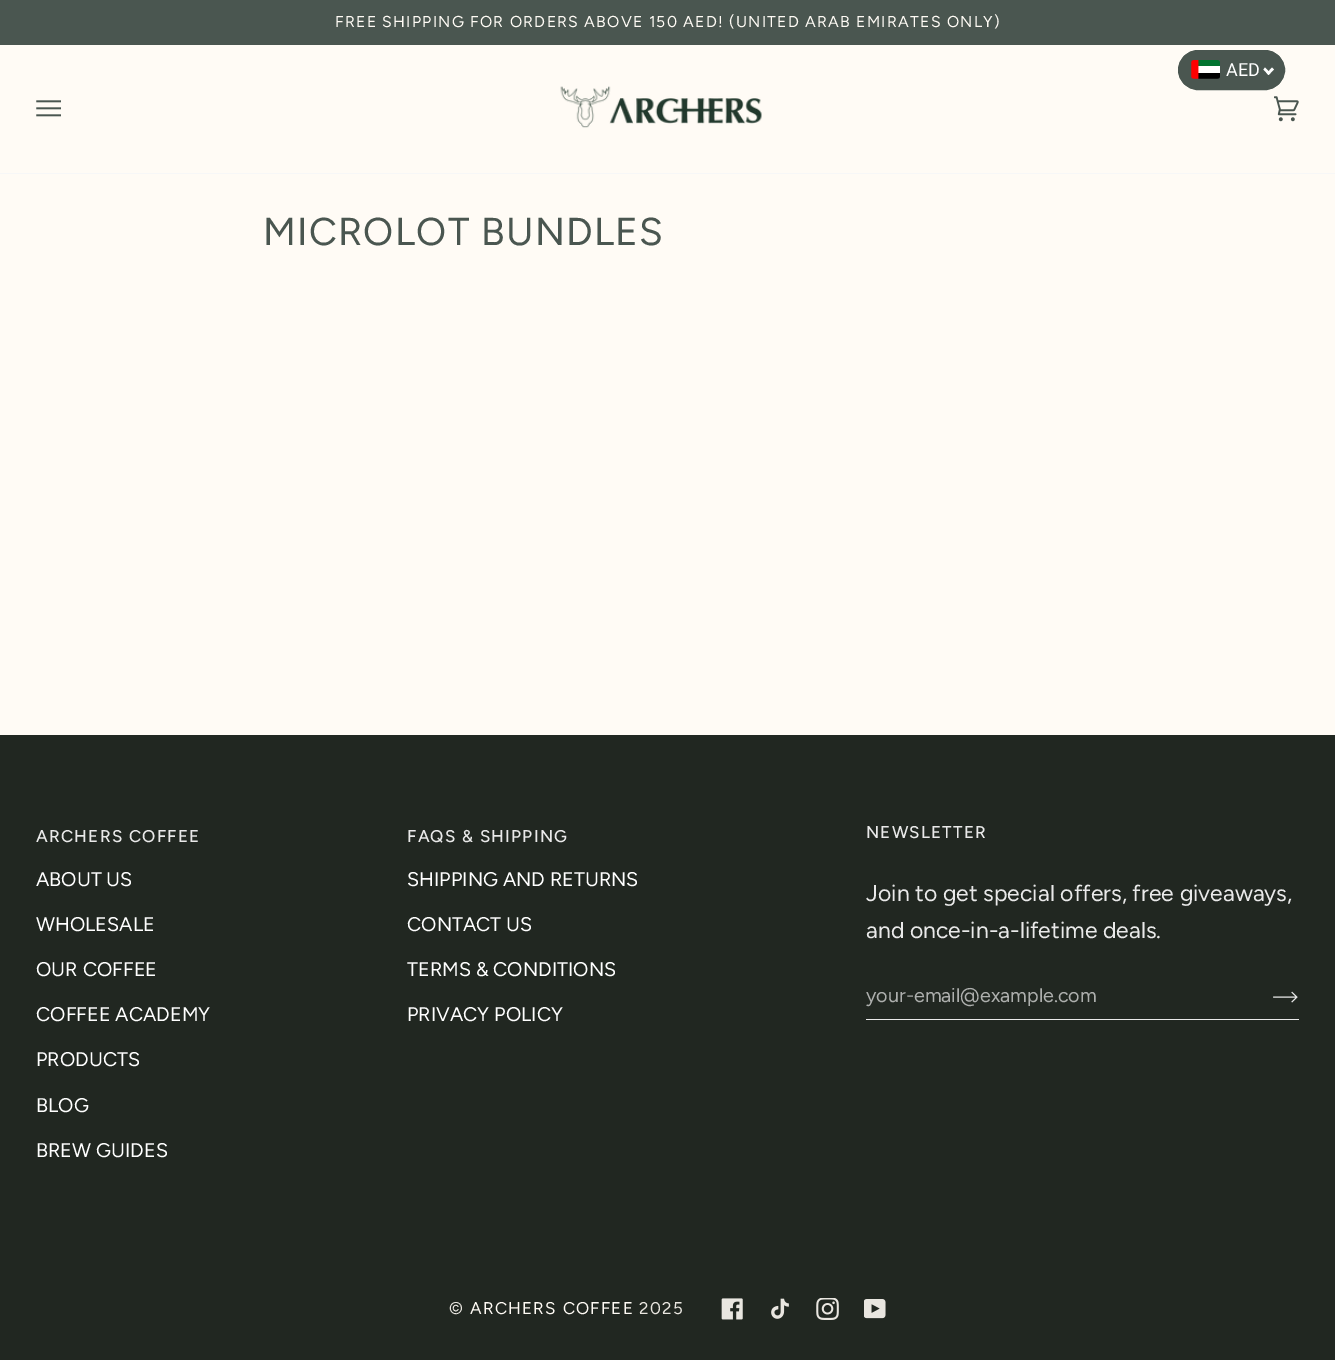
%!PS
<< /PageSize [1335 1360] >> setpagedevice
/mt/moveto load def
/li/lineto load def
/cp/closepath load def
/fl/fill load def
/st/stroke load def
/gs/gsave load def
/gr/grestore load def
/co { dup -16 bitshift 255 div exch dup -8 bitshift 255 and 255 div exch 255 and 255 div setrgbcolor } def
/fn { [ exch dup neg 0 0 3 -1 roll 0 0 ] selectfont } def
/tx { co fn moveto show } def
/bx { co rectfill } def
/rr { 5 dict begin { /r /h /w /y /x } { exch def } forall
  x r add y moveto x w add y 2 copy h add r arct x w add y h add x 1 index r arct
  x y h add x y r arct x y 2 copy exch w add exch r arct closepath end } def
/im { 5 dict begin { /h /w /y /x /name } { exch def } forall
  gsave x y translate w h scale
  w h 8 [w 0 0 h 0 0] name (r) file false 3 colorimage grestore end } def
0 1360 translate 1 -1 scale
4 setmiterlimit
0 0 1335 1360 16#FFFBF5 bx
0 0 1335 45 16#4A5650 bx
1178.5 50.5 106 39 19.5 rr gs fl gr
st
(media/1.raw) 1191 60 29 19 im
16#FFFFFF co
1272 67.5 mt 1274 69.5 li 1268.5 75 li 1267 73 li cp fl
1265 67.5 mt 1270.5 73 li 1268.5 75 li 1263.5 69.5 li cp fl
0 173 1335 1 16#F7F7F7 bx
(media/2.raw) 36 100 25 17 im
(media/3.raw) 560 86 202 42 im
(media/4.raw) 1274 96 25 26 im
0 735 1335 625 16#212721 bx
866 1019 433 1 16#E9E9E9 bx
(media/5.raw) 1273 991 25 12 im
(media/6.raw) 721 1298 22 22 im
(media/7.raw) 771 1298 18 21 im
(media/8.raw) 816 1298 23 22 im
(media/9.raw) 864 1299 22 20 im
/Figtree-Regular 15.8 fn
16#FFFBF5 co
335 27 mt 1.25 0 (FREE SHIPPING FOR ORDERS ABOVE 150 AED! \(UNITED ARAB EMIRATES ONLY\)) ashow
(AED) 1226 76 /Roboto-Regular 18 16#FFFFFF tx
/Figtree-Regular 38.75 fn
16#4A5650 co
263 245 mt 1.25 0 (MICROLOT BUNDLES) ashow
/Figtree-Medium 17 fn
16#E9E9E9 co
36 842 mt 1.25 0 (ARCHERS COFFEE) ashow
(ABOUT US) 36 886 /Figtree-Regular 19.75 16#FFFFFF tx
(WHOLESALE) 36 931 /Figtree-Regular 19.75 16#FFFFFF tx
(OUR COFFEE) 36 976 /Figtree-Regular 19.75 16#FFFFFF tx
(COFFEE ACADEMY) 36 1021 /Figtree-Regular 19.75 16#FFFFFF tx
(PRODUCTS) 36 1066 /Figtree-Regular 19.75 16#FFFFFF tx
(BLOG) 36 1112 /Figtree-Regular 19.75 16#FFFFFF tx
(BREW GUIDES) 36 1157 /Figtree-Regular 19.75 16#FFFFFF tx
/Figtree-Medium 17 fn
16#E9E9E9 co
407 842 mt 1.25 0 (FAQS & SHIPPING) ashow
(SHIPPING AND RETURNS) 407 886 /Figtree-Regular 19.75 16#FFFFFF tx
(CONTACT US) 407 931 /Figtree-Regular 19.75 16#FFFFFF tx
(TERMS & CONDITIONS) 407 976 /Figtree-Regular 19.75 16#FFFFFF tx
(PRIVACY POLICY) 407 1021 /Figtree-Regular 19.75 16#FFFFFF tx
/Figtree-Medium 17 fn
16#E9E9E9 co
866 838 mt 1.25 0 (NEWSLETTER) ashow
(Join to get special offers, free giveaways,) 866 901 /Figtree-Regular 23 16#E9E9E9 tx
(and once-in-a-lifetime deals.) 866 938 /Figtree-Regular 23 16#E9E9E9 tx
(your-email@example.com) 866 1002 /Figtree-Regular 19.75 16#ADAFAD tx
/Figtree-Regular 17 fn
16#E9E6E0 co
449 1314 mt 1.25 0 (©) ashow
16#FFFBF5 co
470 1314 mt 1.25 0 (ARCHERS COFFEE) ashow
16#E9E6E0 co
639 1314 mt 1.25 0 (2025) ashow
showpage
